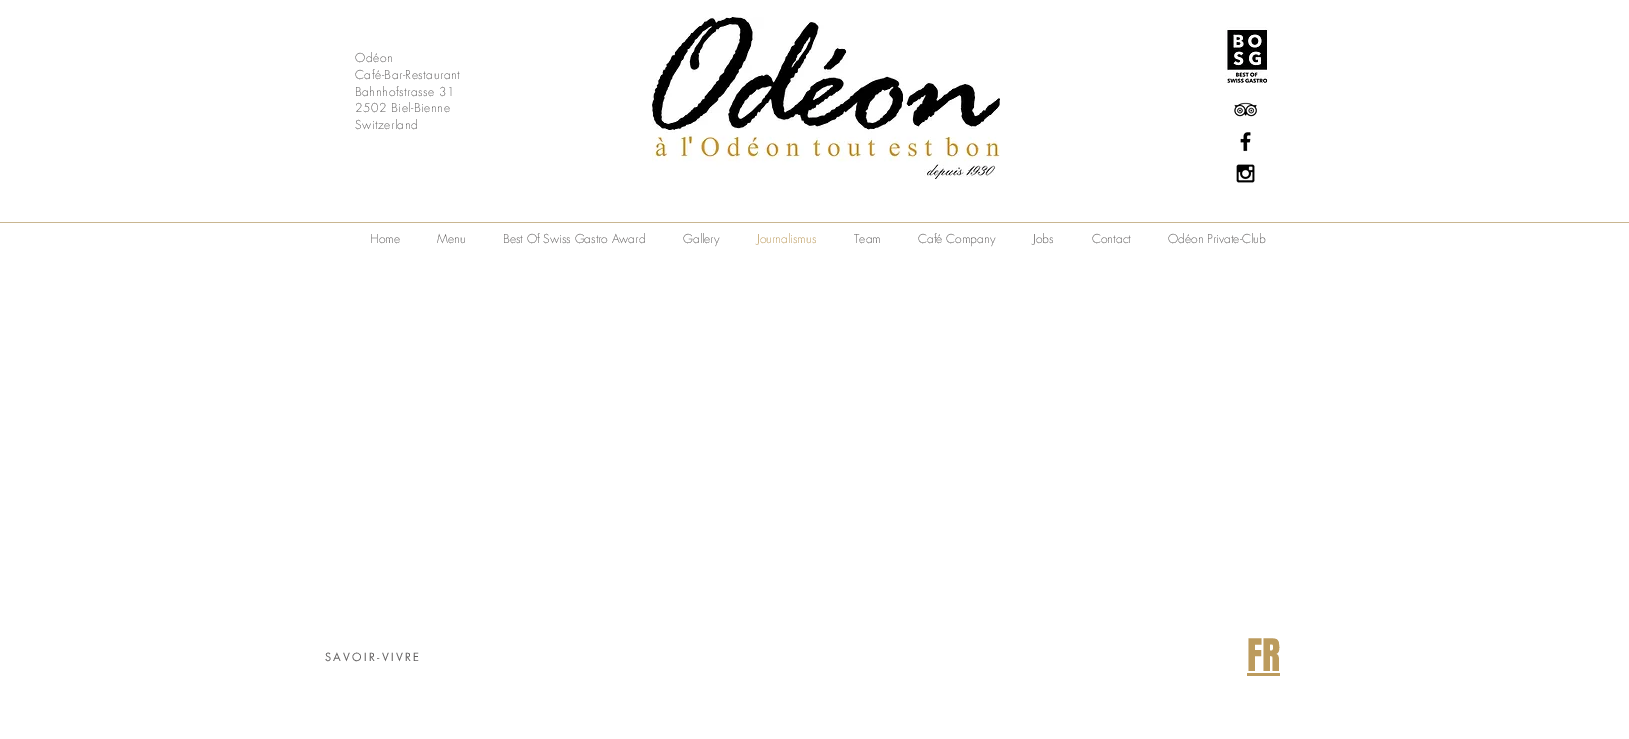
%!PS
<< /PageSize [1629 739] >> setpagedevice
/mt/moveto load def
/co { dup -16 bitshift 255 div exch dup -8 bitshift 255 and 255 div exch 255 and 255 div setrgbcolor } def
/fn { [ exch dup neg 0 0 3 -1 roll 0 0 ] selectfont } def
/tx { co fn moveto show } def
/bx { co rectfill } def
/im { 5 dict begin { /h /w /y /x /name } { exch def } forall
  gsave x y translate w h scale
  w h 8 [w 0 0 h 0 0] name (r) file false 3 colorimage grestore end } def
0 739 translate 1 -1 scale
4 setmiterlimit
0 0 1629 739 16#FFFFFF bx
(media/1.raw) 652 17 348 162 im
(media/2.raw) 1225 27 44 56 im
(media/3.raw) 1234 102 23 15 im
(media/4.raw) 1240 132 11 20 im
(media/5.raw) 1236 164 19 19 im
0 222 1629 1 16#C9B691 bx
1247 673 33 3 16#BC9B5D bx
/futura-Light 12 fn
16#605E5E co
355 62 mt .5 0 (Odéon) ashow
355 79 mt .5 0 (Café-Bar-Restaurant) ashow
355 96 mt .5 0 (Bahnhofstrasse 31) ashow
355 112 mt .5 0 (2502 Biel-Bienne) ashow
355 129 mt .5 0 (Switzerland) ashow
(Home) 370 243 /futura-Light 12 16#605E5E tx
(Menu) 437 243 /futura-Light 12 16#605E5E tx
(Best Of Swiss Gastro Award) 503 243 /futura-Light 12 16#605E5E tx
(Gallery) 683 243 /futura-Light 12 16#605E5E tx
(Journalismus) 757 243 /futura-Light 12 16#BC9B5D tx
(Team) 854 243 /futura-Light 12 16#605E5E tx
(Café Company) 918 243 /futura-Light 12 16#605E5E tx
(Jobs) 1033 243 /futura-Light 12 16#605E5E tx
(Contact) 1092 243 /futura-Light 12 16#605E5E tx
(Odéon Private-Club) 1168 243 /futura-Light 12 16#605E5E tx
/futura-Regular 11 fn
325 661 mt 2.25 0 (SAVOIR-VIVRE) ashow
(FR) 1247 671 /Anton-Regular 38 16#BC9B5D tx
showpage
